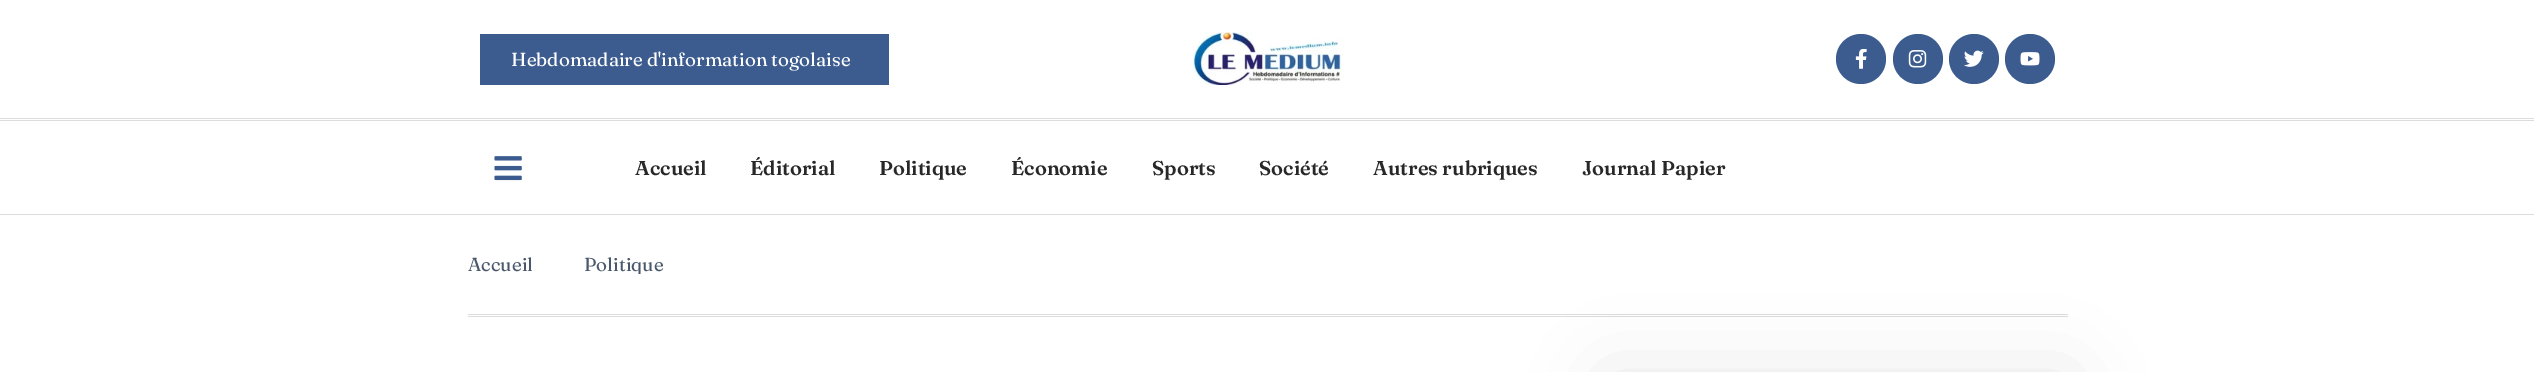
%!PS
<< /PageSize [2534 372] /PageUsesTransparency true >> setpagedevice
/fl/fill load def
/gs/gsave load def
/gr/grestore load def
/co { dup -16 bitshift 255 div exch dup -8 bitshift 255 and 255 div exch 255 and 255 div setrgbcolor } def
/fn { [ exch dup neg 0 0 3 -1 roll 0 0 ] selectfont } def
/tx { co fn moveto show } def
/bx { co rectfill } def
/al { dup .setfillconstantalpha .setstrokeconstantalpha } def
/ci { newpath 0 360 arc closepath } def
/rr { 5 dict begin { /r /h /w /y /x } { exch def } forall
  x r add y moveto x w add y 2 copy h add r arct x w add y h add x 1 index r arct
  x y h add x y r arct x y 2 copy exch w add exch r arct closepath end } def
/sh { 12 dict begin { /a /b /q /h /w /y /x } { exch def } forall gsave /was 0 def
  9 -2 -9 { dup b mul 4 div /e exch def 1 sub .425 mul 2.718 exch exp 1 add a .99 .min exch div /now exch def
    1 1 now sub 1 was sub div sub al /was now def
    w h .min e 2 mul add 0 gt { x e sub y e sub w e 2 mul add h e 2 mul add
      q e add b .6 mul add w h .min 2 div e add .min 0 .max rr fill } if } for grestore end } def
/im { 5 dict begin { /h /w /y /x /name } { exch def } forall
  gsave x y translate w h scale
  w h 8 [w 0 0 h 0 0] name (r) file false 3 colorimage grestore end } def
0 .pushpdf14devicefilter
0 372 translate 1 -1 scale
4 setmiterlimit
0 0 2534 372 16#FFFFFF bx
0 118 2534 1 16#DCDCDE bx
0 120 2534 1 16#DCDCDE bx
480 34 409 51 16#3C5C90 bx
(media/1.raw) 1192 32 151 53 im
1861 59 25 ci fl
(media/2.raw) 1855 49 12 20 im
1918 59 25 ci fl
(media/3.raw) 1908 50 19 18 im
1974 59 25 ci fl
(media/4.raw) 1964 50 20 17 im
2030 59 25 ci fl
(media/5.raw) 2020 52 20 14 im
0 214 2534 1 16#DCDCDE bx
(media/6.raw) 494 156 28 25 im
468 314 1600 1 16#DCDCDE bx
468 316 1600 1 16#DCDCDE bx
16#000000 co
1608 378 460 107 0 37.5 .1 sh
(Hebdomadaire d'information togolaise) 511 66 /Fraunces-Regular 18.75 16#FFFFFF tx
(Accueil) 635 175 /Fraunces-SemiBold 20 16#282828 tx
(Éditorial) 750 175 /Fraunces-SemiBold 20 16#282828 tx
(Politique) 879 175 /Fraunces-SemiBold 20 16#282828 tx
(Économie) 1011 175 /Fraunces-SemiBold 20 16#282828 tx
(Sports) 1152 175 /Fraunces-SemiBold 20 16#282828 tx
(Société) 1259 175 /Fraunces-SemiBold 20 16#282828 tx
(Autres rubriques) 1373 175 /Fraunces-SemiBold 20 16#282828 tx
(Journal Papier) 1582 175 /Fraunces-SemiBold 20 16#282828 tx
(Accueil) 468 271 /Fraunces-Regular 18.75 16#48586A tx
gs
468 255 1600 19 rectclip
(Politique) 584 271 /Fraunces-Regular 18.75 16#48586A tx
gr
.poppdf14devicefilter showpage
